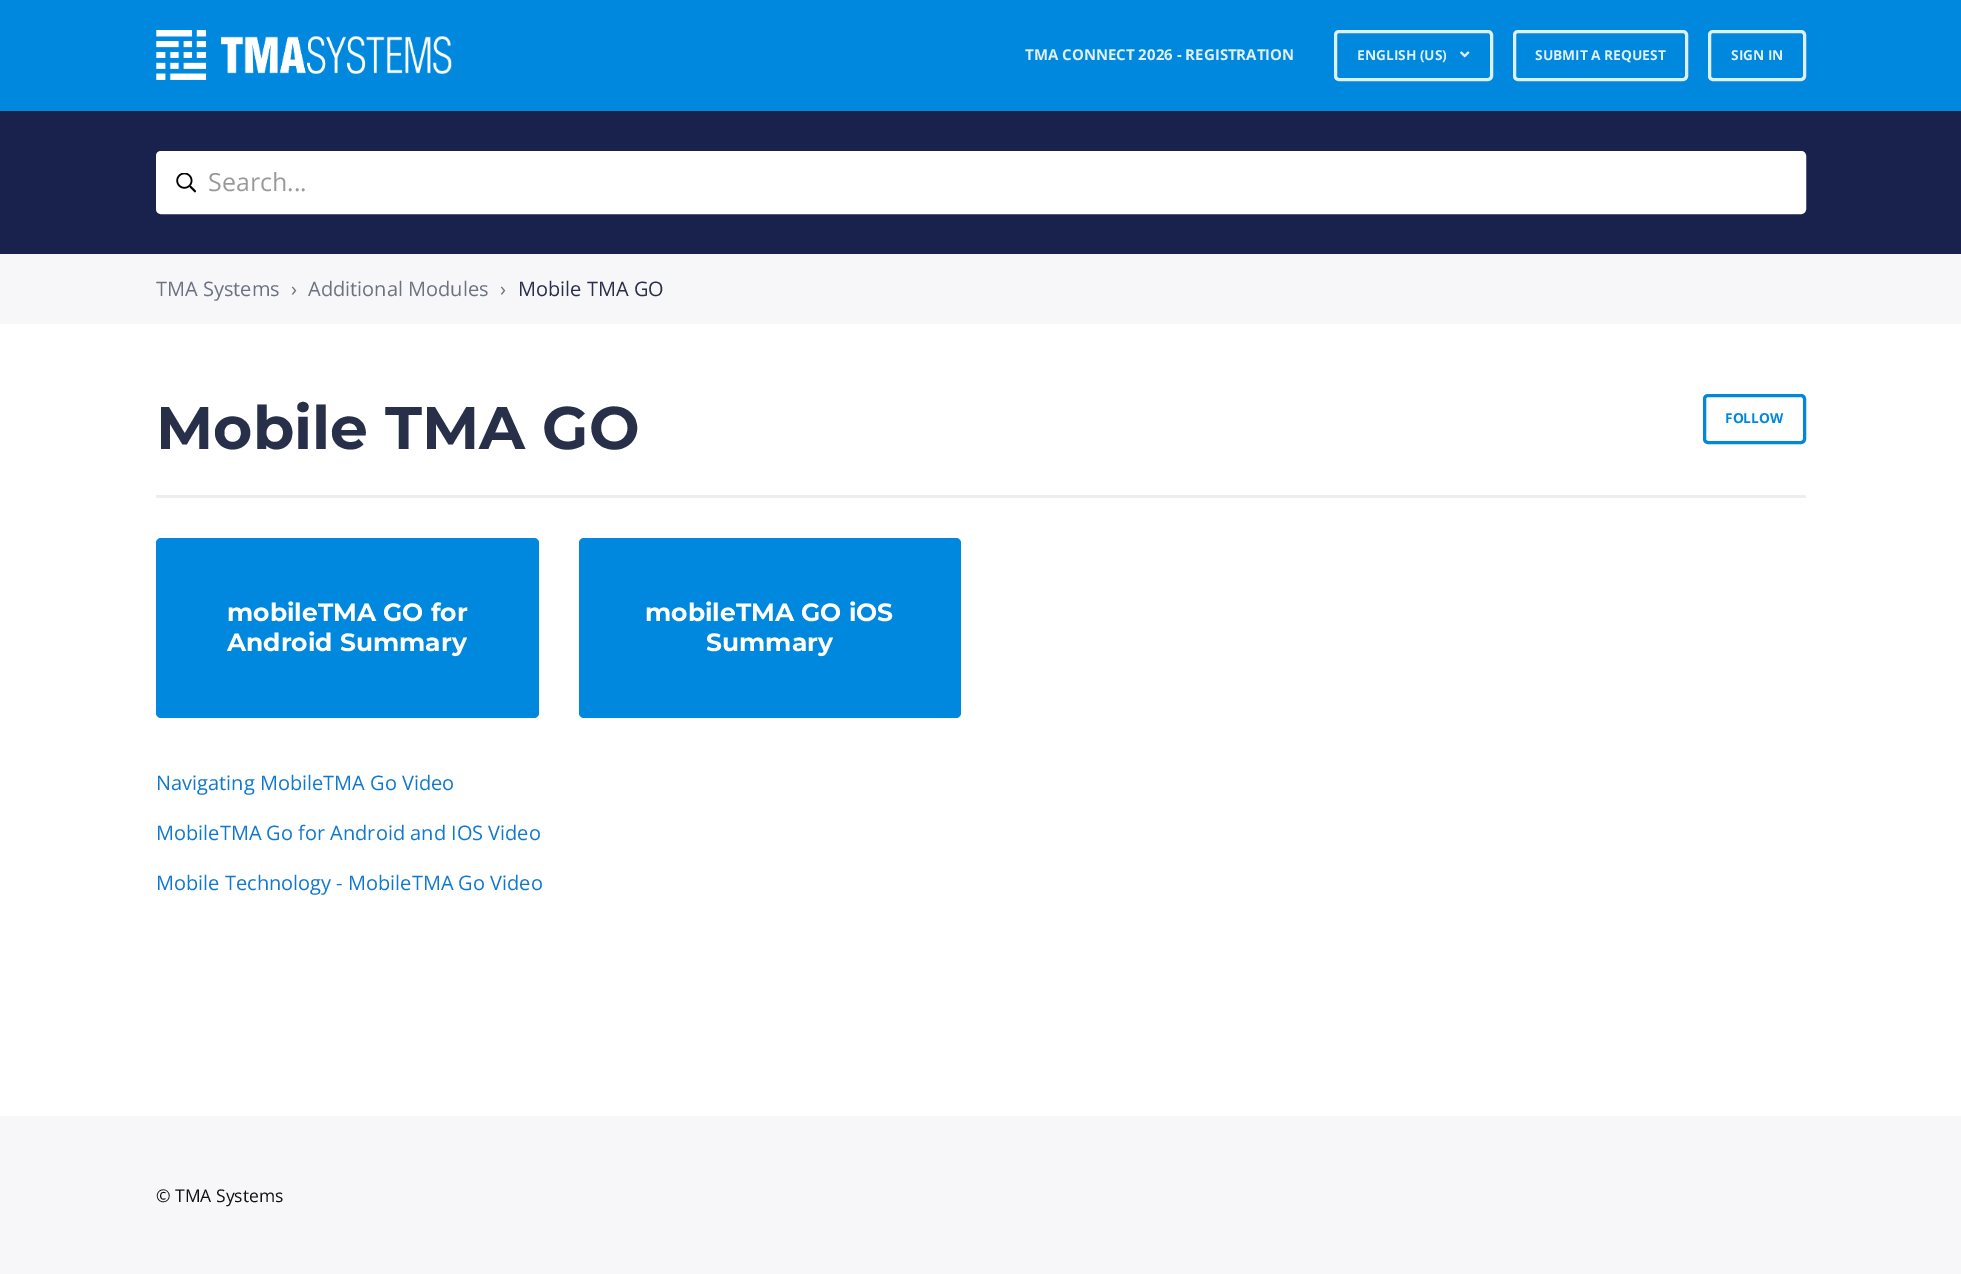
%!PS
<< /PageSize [1961 1274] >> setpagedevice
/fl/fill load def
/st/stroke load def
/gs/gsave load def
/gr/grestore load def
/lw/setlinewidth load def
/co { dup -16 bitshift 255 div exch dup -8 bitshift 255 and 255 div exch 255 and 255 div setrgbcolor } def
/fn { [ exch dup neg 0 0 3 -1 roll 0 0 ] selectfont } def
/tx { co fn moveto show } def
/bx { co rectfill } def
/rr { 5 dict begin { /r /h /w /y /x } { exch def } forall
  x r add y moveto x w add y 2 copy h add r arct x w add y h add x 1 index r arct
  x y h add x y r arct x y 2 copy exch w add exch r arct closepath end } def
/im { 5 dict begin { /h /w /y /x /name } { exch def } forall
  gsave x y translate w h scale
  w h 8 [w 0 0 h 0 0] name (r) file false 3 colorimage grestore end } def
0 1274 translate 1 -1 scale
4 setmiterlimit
0 0 1961 1274 16#FFFFFF bx
0 0 1961 111 16#0088DF bx
(media/1.raw) 156 30 296 50 im
16#DFF0F5 co
3 lw
1335.5 31.5 156 48 3.5 rr st
(media/2.raw) 1460 51 10 7 im
1514.5 31.5 172 48 3.5 rr st
1709.5 31.5 95 48 3.5 rr st
0 111 1961 143 16#19214D bx
16#FFFFFF co
157.5 152.5 1647 60 3.5 rr gs fl gr
st
(media/3.raw) 176 173 20 20 im
0 254 1961 70 16#F7F7F9 bx
156 495 1650 3 16#ECEEEF bx
16#0088DF co
1704.5 395.5 100 47 3.5 rr st
156 538 383 180 5 rr fl
579 538 382 180 5 rr fl
0 1116 1961 158 16#F7F7F9 bx
(TMA CONNECT 2026 - REGISTRATION) 1025 60 /OpenSans-Bold 15 16#DFF0F5 tx
(ENGLISH \(US\)) 1357 60 /OpenSans-Bold 13.75 16#DFF0F5 tx
(SUBMIT A REQUEST) 1535 60 /OpenSans-Bold 13.75 16#DFF0F5 tx
(SIGN IN) 1731 60 /OpenSans-Bold 13.75 16#DFF0F5 tx
(Search...) 208 191 /OpenSans-Regular 25 16#999999 tx
(TMA Systems) 156 296 /OpenSans-Regular 20 16#6B7280 tx
(›) 291 296 /OpenSans-Regular 20 16#6B7280 tx
(Additional Modules) 308 296 /OpenSans-Regular 20 16#6B7280 tx
(›) 500 296 /OpenSans-Regular 20 16#6B7280 tx
(Mobile TMA GO) 518 296 /OpenSans-Regular 20 16#282F48 tx
(Mobile TMA GO) 156 449 /Montserrat-Bold 60 16#282F48 tx
(FOLLOW) 1725 423 /OpenSans-Bold 13.75 16#0088DF tx
(mobileTMA GO for) 227 621 /Montserrat-Bold 25 16#FFFFFF tx
(Android Summary) 227 651 /Montserrat-Bold 25 16#FFFFFF tx
(mobileTMA GO iOS) 645 621 /Montserrat-Bold 25 16#FFFFFF tx
(Summary) 706 651 /Montserrat-Bold 25 16#FFFFFF tx
(Navigating MobileTMA Go Video) 156 790 /OpenSans-Regular 20 16#1078CE tx
(MobileTMA Go for Android and IOS Video) 156 840 /OpenSans-Regular 20 16#1078CE tx
(Mobile Technology - MobileTMA Go Video) 156 890 /OpenSans-Regular 20 16#1078CE tx
(© TMA Systems) 156 1202 /OpenSans-Regular 17.5 16#101010 tx
showpage
